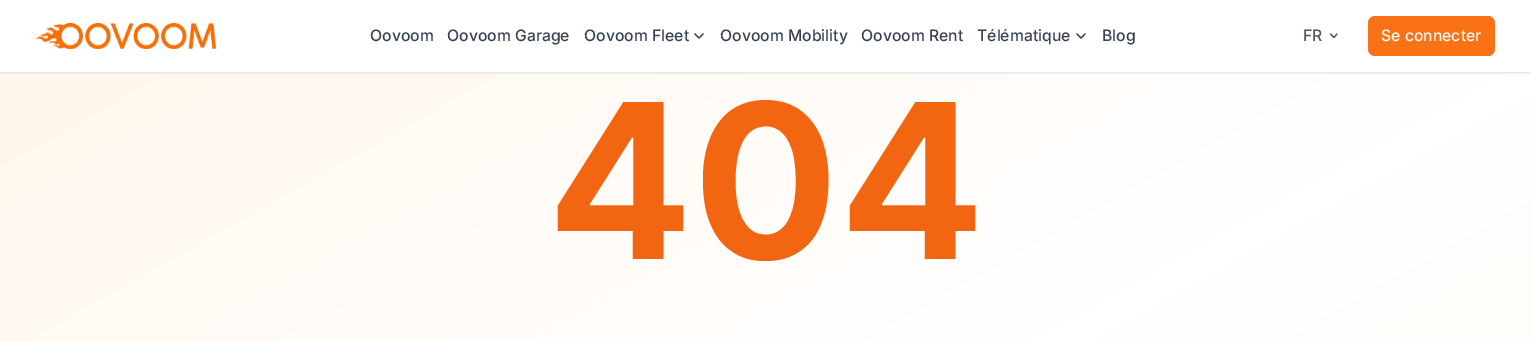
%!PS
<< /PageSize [1531 342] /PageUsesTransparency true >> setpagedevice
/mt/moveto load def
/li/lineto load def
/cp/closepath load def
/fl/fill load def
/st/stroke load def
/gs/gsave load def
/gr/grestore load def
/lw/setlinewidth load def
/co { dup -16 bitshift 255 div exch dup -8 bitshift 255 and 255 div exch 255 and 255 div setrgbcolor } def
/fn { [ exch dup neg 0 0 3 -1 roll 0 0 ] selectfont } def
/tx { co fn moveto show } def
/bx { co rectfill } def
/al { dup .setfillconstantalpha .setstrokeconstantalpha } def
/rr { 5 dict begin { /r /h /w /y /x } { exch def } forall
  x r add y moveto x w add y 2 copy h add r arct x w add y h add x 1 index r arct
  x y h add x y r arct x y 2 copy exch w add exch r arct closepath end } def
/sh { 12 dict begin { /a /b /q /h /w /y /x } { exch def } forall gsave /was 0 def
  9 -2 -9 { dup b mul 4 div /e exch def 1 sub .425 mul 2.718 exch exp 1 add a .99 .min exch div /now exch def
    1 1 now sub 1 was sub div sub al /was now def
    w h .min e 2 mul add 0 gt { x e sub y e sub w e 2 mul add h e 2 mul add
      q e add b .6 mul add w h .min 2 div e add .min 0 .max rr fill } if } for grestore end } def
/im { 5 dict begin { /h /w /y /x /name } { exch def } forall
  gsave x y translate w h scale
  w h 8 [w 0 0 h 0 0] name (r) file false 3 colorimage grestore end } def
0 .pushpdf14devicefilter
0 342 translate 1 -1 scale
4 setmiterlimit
0 0 1531 342 16#FFFFFF bx
gs 0 73 mt 1531 73 li 1531 342 li 0 342 li cp clip newpath
<< /ShadingType 2 /ColorSpace /DeviceRGB /Coords [395 -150 1136 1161] /Extend [true true] /Function << /FunctionType 3 /Domain [0 1] /Functions [<< /FunctionType 2 /Domain [0 1] /C0 [1 .969 .929] /C1 [1 1 1] /N 1 >> << /FunctionType 2 /Domain [0 1] /C0 [1 1 1] /C1 [1 .969 .929] /N 1 >>] /Bounds [.5] /Encode [0 1 0 1] >> >> shfill gr
16#000000 co
0 1 1531 73 0 1 .05 sh
0 0 1531 72 16#FFFFFF bx
0 72 1531 1 16#E5E7EB bx
(media/1.raw) 36 22 180 27 im
16#374151 co
1.3 lw
1 setlinecap
1 setlinejoin
695 34 mt 699 38 li 703 34 li st
1077 34 mt 1081 38 li 1085 34 li st
16#4B5563 co
1.1 lw
1330.5 34 mt 1334 37.5 li 1337 34 li st
16#F97316 co
1368 16 127 40 7 rr fl
(Oovoom) 370 41 /Inter-Medium 15.75 16#374151 tx
(Oovoom Garage) 447 41 /Inter-Medium 15.75 16#374151 tx
(Oovoom Fleet) 584 41 /Inter-Medium 15.75 16#374151 tx
(Oovoom Mobility) 720 41 /Inter-Medium 15.75 16#374151 tx
(Oovoom Rent) 861 41 /Inter-Medium 15.75 16#374151 tx
(Télématique) 977 41 /Inter-Medium 15.75 16#374151 tx
(Blog) 1102 41 /Inter-Medium 15.75 16#374151 tx
(FR) 1303 41 /Inter-Medium 15.75 16#4B5563 tx
(Se connecter) 1381 41 /Inter-Medium 15.75 16#FAFAFA tx
(404) 547 259 /Inter-Bold 216 16#F26611 tx
.poppdf14devicefilter showpage
